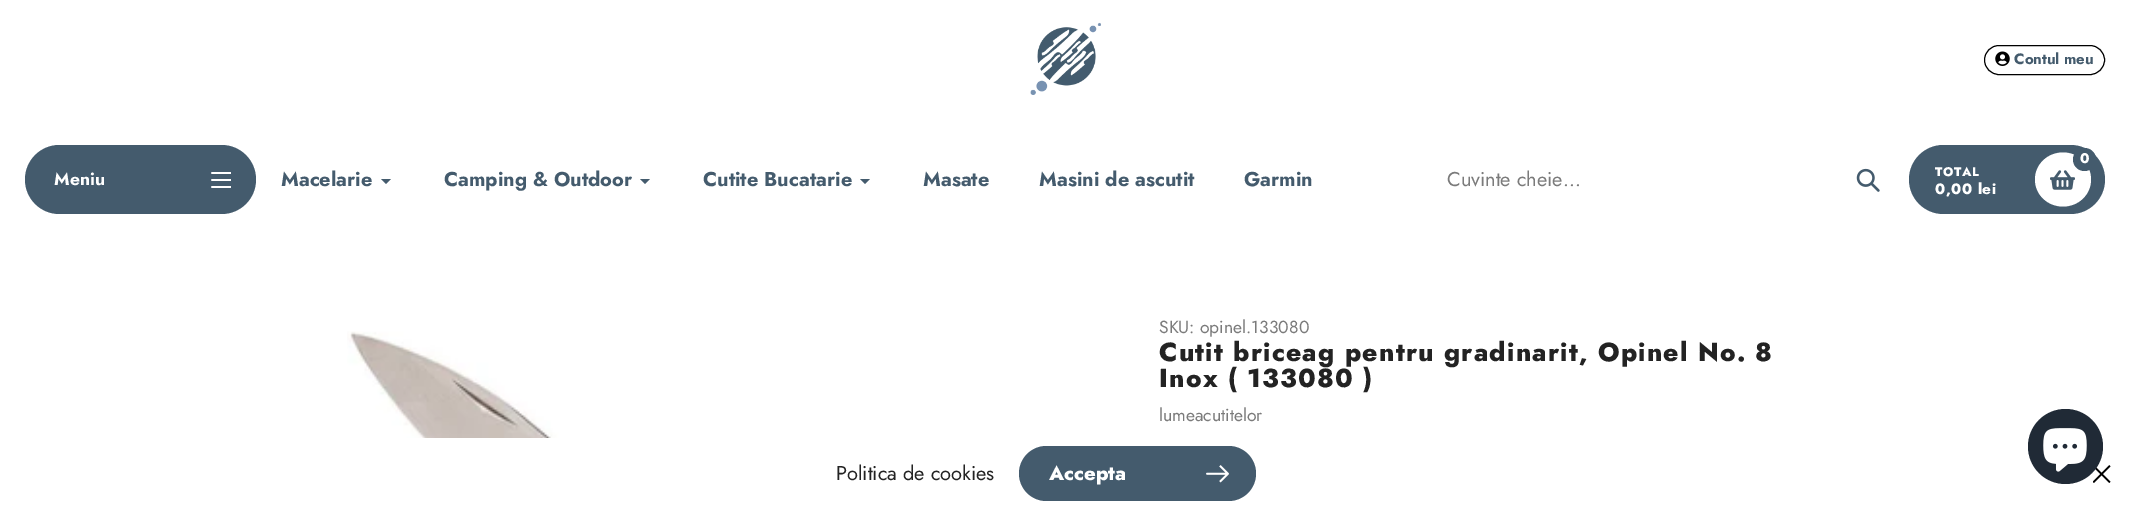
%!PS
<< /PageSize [2130 509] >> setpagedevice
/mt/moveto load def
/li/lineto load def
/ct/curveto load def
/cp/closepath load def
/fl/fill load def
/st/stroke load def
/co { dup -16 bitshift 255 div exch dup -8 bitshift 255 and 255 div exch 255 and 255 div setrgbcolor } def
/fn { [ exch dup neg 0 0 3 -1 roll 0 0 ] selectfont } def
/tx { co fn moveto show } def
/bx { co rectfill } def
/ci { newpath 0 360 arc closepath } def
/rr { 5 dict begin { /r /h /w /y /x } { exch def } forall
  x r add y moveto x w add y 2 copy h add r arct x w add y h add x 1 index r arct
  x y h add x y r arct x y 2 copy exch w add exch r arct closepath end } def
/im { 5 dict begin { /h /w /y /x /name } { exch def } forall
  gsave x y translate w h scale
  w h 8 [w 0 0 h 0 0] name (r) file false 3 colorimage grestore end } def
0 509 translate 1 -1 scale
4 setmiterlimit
0 0 2130 509 16#FFFFFF bx
(media/1.raw) 1030 22 71 73 im
16#000000 co
1984.5 45.5 120 29 14.5 rr st
(media/2.raw) 1995 51 15 15 im
16#445B6D co
25 145 231 69 34.5 rr fl
(media/3.raw) 211 172 20 16 im
391 179 mt 386 184 li 381 179 li fl
650 179 mt 645 184 li 640 179 li fl
870 179 mt 865 184 li 860 179 li fl
(media/4.raw) 1856 168 24 24 im
1909 145 196 69 34.5 rr fl
16#FFFFFF co
2063 152.5 mt 2078.5 152.5 2091 164.5 2091 179.5 ct 2091 194.5 2078.5 206.5 2063 206.5 ct 2047.5 206.5 2035 194.5 2035 179.5 ct 2035 164.5 2047.5 152.5 2063 152.5 ct cp fl
(media/5.raw) 2050 170 25 20 im
16#445B6D co
2084.5 159.5 11.5 ci fl
(media/6.raw) 347 331 296 107 im
1019 446 237 55 27.5 rr fl
(media/7.raw) 1206 465 23 18 im
(media/8.raw) 2093 465 18 18 im
16#202A36 co
2065.5 446.5 37.5 ci fl
(media/9.raw) 2043 428 44 44 im
(Contul meu) 2014 64 /Jost-Bold 15 16#445B6D tx
(Meniu) 54 185 /Jost-Bold 17.5 16#FFFFFF tx
(Macelarie) 281 186 /Jost-Bold 20 16#445B6D tx
(Camping & Outdoor) 444 186 /Jost-Bold 20 16#445B6D tx
(Cutite Bucatarie) 703 186 /Jost-Bold 20 16#445B6D tx
(Masate) 923 186 /Jost-Bold 20 16#445B6D tx
(Masini de ascutit) 1039 186 /Jost-Bold 20 16#445B6D tx
(Garmin) 1244 186 /Jost-Bold 20 16#445B6D tx
(Cuvinte cheie...) 1447 186 /Jost-Regular 20 16#7B7B7B tx
(0) 2080 163 /Jost-ExtraBold 14 16#FFFFFF tx
/Jost-ExtraBold 12.5 fn
1935 176 mt .5 0 (TOTAL) ashow
/Jost-ExtraBold 15 fn
1935 194 mt .5 0 (0,00 lei) ashow
(SKU: opinel.133080) 1159 333 /Jost-Regular 17.5 16#7B7B7B tx
/Jost-ExtraBold 26 fn
16#232323 co
1159 361 mt 1.25 0 (Cutit briceag pentru gradinarit, Opinel No. 8) ashow
1159 387 mt 1.25 0 (Inox \( 133080 \)) ashow
(lumeacutitelor) 1159 421 /Jost-Regular 17.5 16#7B7B7B tx
(Politica de cookies) 836 480 /Jost-Regular 20 16#232323 tx
(Accepta) 1049 480 /Jost-ExtraBold 20 16#FFFFFF tx
showpage
